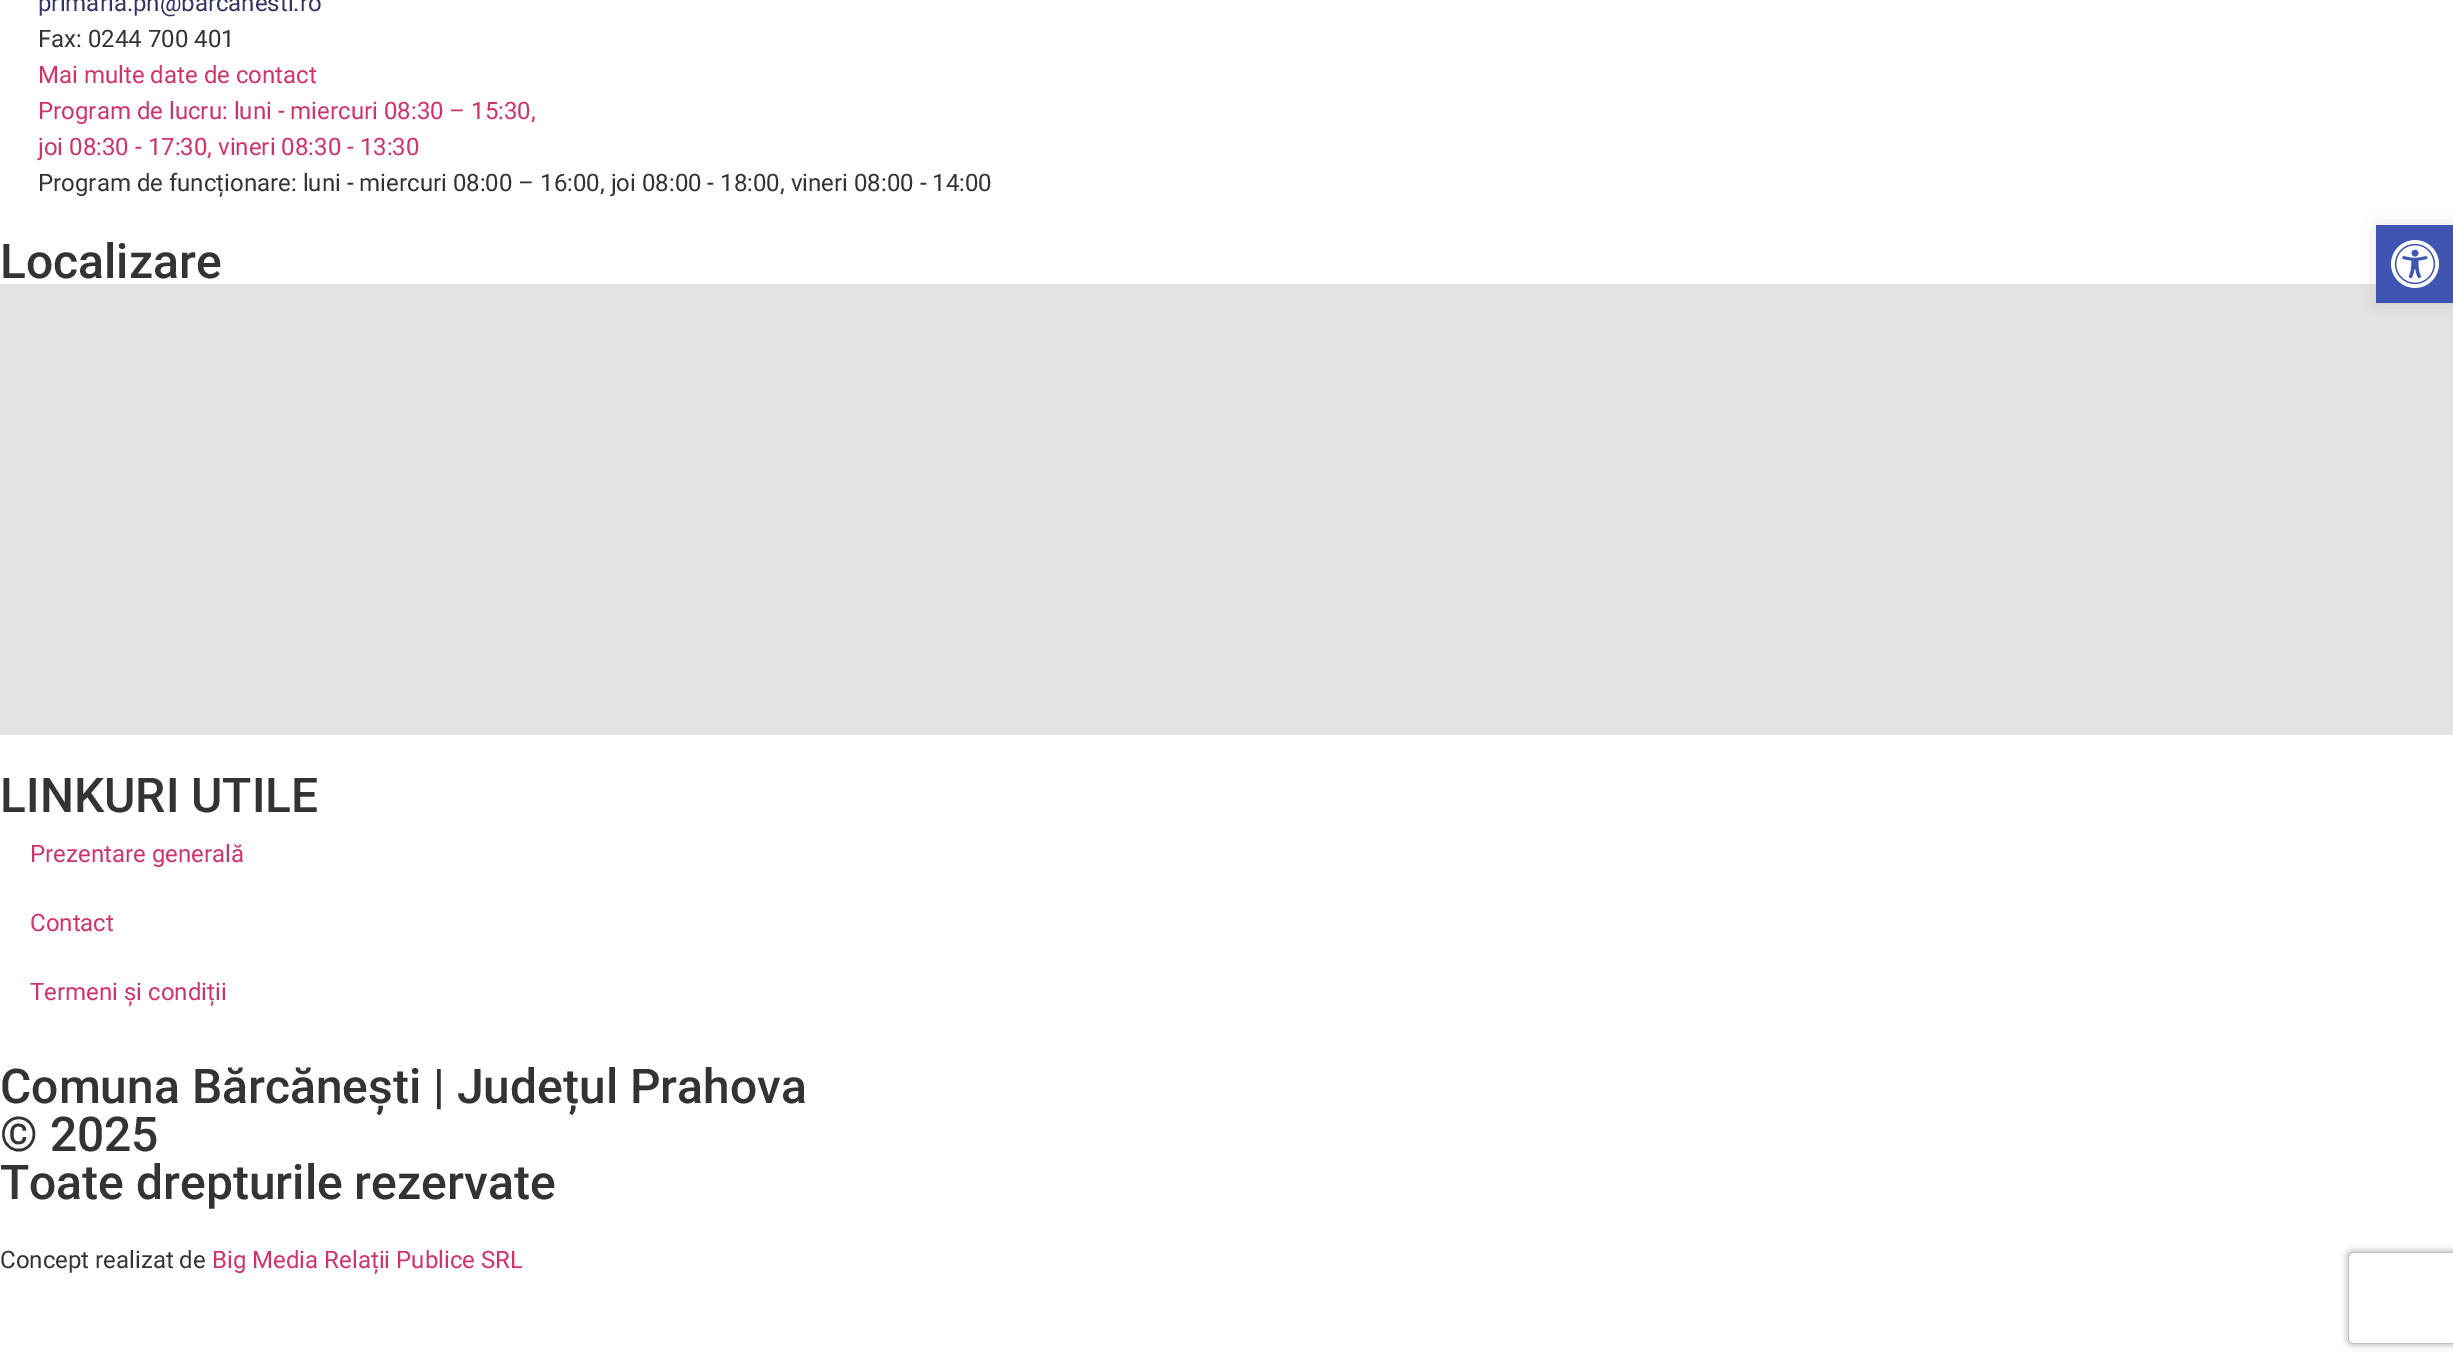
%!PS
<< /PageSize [2453 1363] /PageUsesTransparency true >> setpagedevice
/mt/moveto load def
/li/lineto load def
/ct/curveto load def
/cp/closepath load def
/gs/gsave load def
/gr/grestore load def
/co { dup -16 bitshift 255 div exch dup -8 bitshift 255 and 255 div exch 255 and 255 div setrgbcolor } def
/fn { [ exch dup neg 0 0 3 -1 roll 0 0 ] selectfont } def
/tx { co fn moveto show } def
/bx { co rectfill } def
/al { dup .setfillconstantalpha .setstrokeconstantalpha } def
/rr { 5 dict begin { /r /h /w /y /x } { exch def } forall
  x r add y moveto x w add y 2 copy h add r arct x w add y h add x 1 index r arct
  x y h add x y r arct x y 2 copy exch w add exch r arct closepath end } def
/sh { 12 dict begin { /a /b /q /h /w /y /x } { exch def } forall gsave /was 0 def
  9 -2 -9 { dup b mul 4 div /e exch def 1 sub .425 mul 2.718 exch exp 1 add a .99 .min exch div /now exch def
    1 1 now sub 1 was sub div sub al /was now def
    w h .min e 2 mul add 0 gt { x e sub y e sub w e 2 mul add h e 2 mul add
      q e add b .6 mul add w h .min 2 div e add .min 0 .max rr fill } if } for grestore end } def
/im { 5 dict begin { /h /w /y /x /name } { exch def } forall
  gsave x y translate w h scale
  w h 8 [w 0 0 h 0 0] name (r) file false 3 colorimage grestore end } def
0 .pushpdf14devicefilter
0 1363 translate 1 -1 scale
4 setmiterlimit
0 0 2453 1363 16#FFFFFF bx
0 284 2453 451 16#E5E3DF bx
16#000000 co
2376 225 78 78 0 7.5 .1 sh
2376 225 77 78 16#4054B2 bx
(media/1.raw) 2391 240 48 48 im
gs
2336 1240 mt 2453 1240 li 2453 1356 li 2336 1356 li cp 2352 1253 mt 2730 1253 li 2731.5 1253 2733 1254.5 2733 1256 ct 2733 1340 li 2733 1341.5 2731.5 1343 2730 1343 ct 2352 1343 li 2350.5 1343 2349 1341.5 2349 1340 ct 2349 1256 li 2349 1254.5 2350.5 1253 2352 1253 ct cp eoclip newpath
16#808080 co
2349 1253 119 90 3 4 1 sh
gr
(primaria.ph@barcanesti.ro) 38 11 /Roboto-Regular 24 16#333366 tx
(Fax: 0244 700 401) 38 47 /Roboto-Regular 24 16#333333 tx
(Mai multe date de contact) 38 83 /Roboto-Regular 24 16#CC3366 tx
(Program de lucru: luni - miercuri 08:30 – 15:30,) 38 119 /Roboto-Regular 24 16#CC3366 tx
(joi 08:30 - 17:30, vineri 08:30 - 13:30) 38 155 /Roboto-Regular 24 16#CC3366 tx
(Program de funcționare: luni - miercuri 08:00 – 16:00, joi 08:00 - 18:00, vineri 08:00 - 14:00) 38 191 /Roboto-Regular 24 16#333333 tx
(Localizare) 0 278 /Roboto-Medium 48 16#333333 tx
(LINKURI UTILE) 0 812 /Roboto-Medium 48 16#333333 tx
(Prezentare generală) 30 862 /Roboto-Regular 24 16#CC3366 tx
(Contact) 30 931 /Roboto-Regular 24 16#CC3366 tx
(Termeni și condiții) 30 1000 /Roboto-Regular 24 16#CC3366 tx
(Comuna Bărcănești | Județul Prahova) 0 1103 /Roboto-Medium 48 16#333333 tx
(© 2025) 0 1151 /Roboto-Medium 48 16#333333 tx
(Toate drepturile rezervate) 0 1199 /Roboto-Medium 48 16#333333 tx
(Concept realizat de) 0 1268 /Roboto-Regular 24 16#333333 tx
(Big Media Relații Publice SRL) 212 1268 /Roboto-Regular 24 16#CC3366 tx
.poppdf14devicefilter showpage
